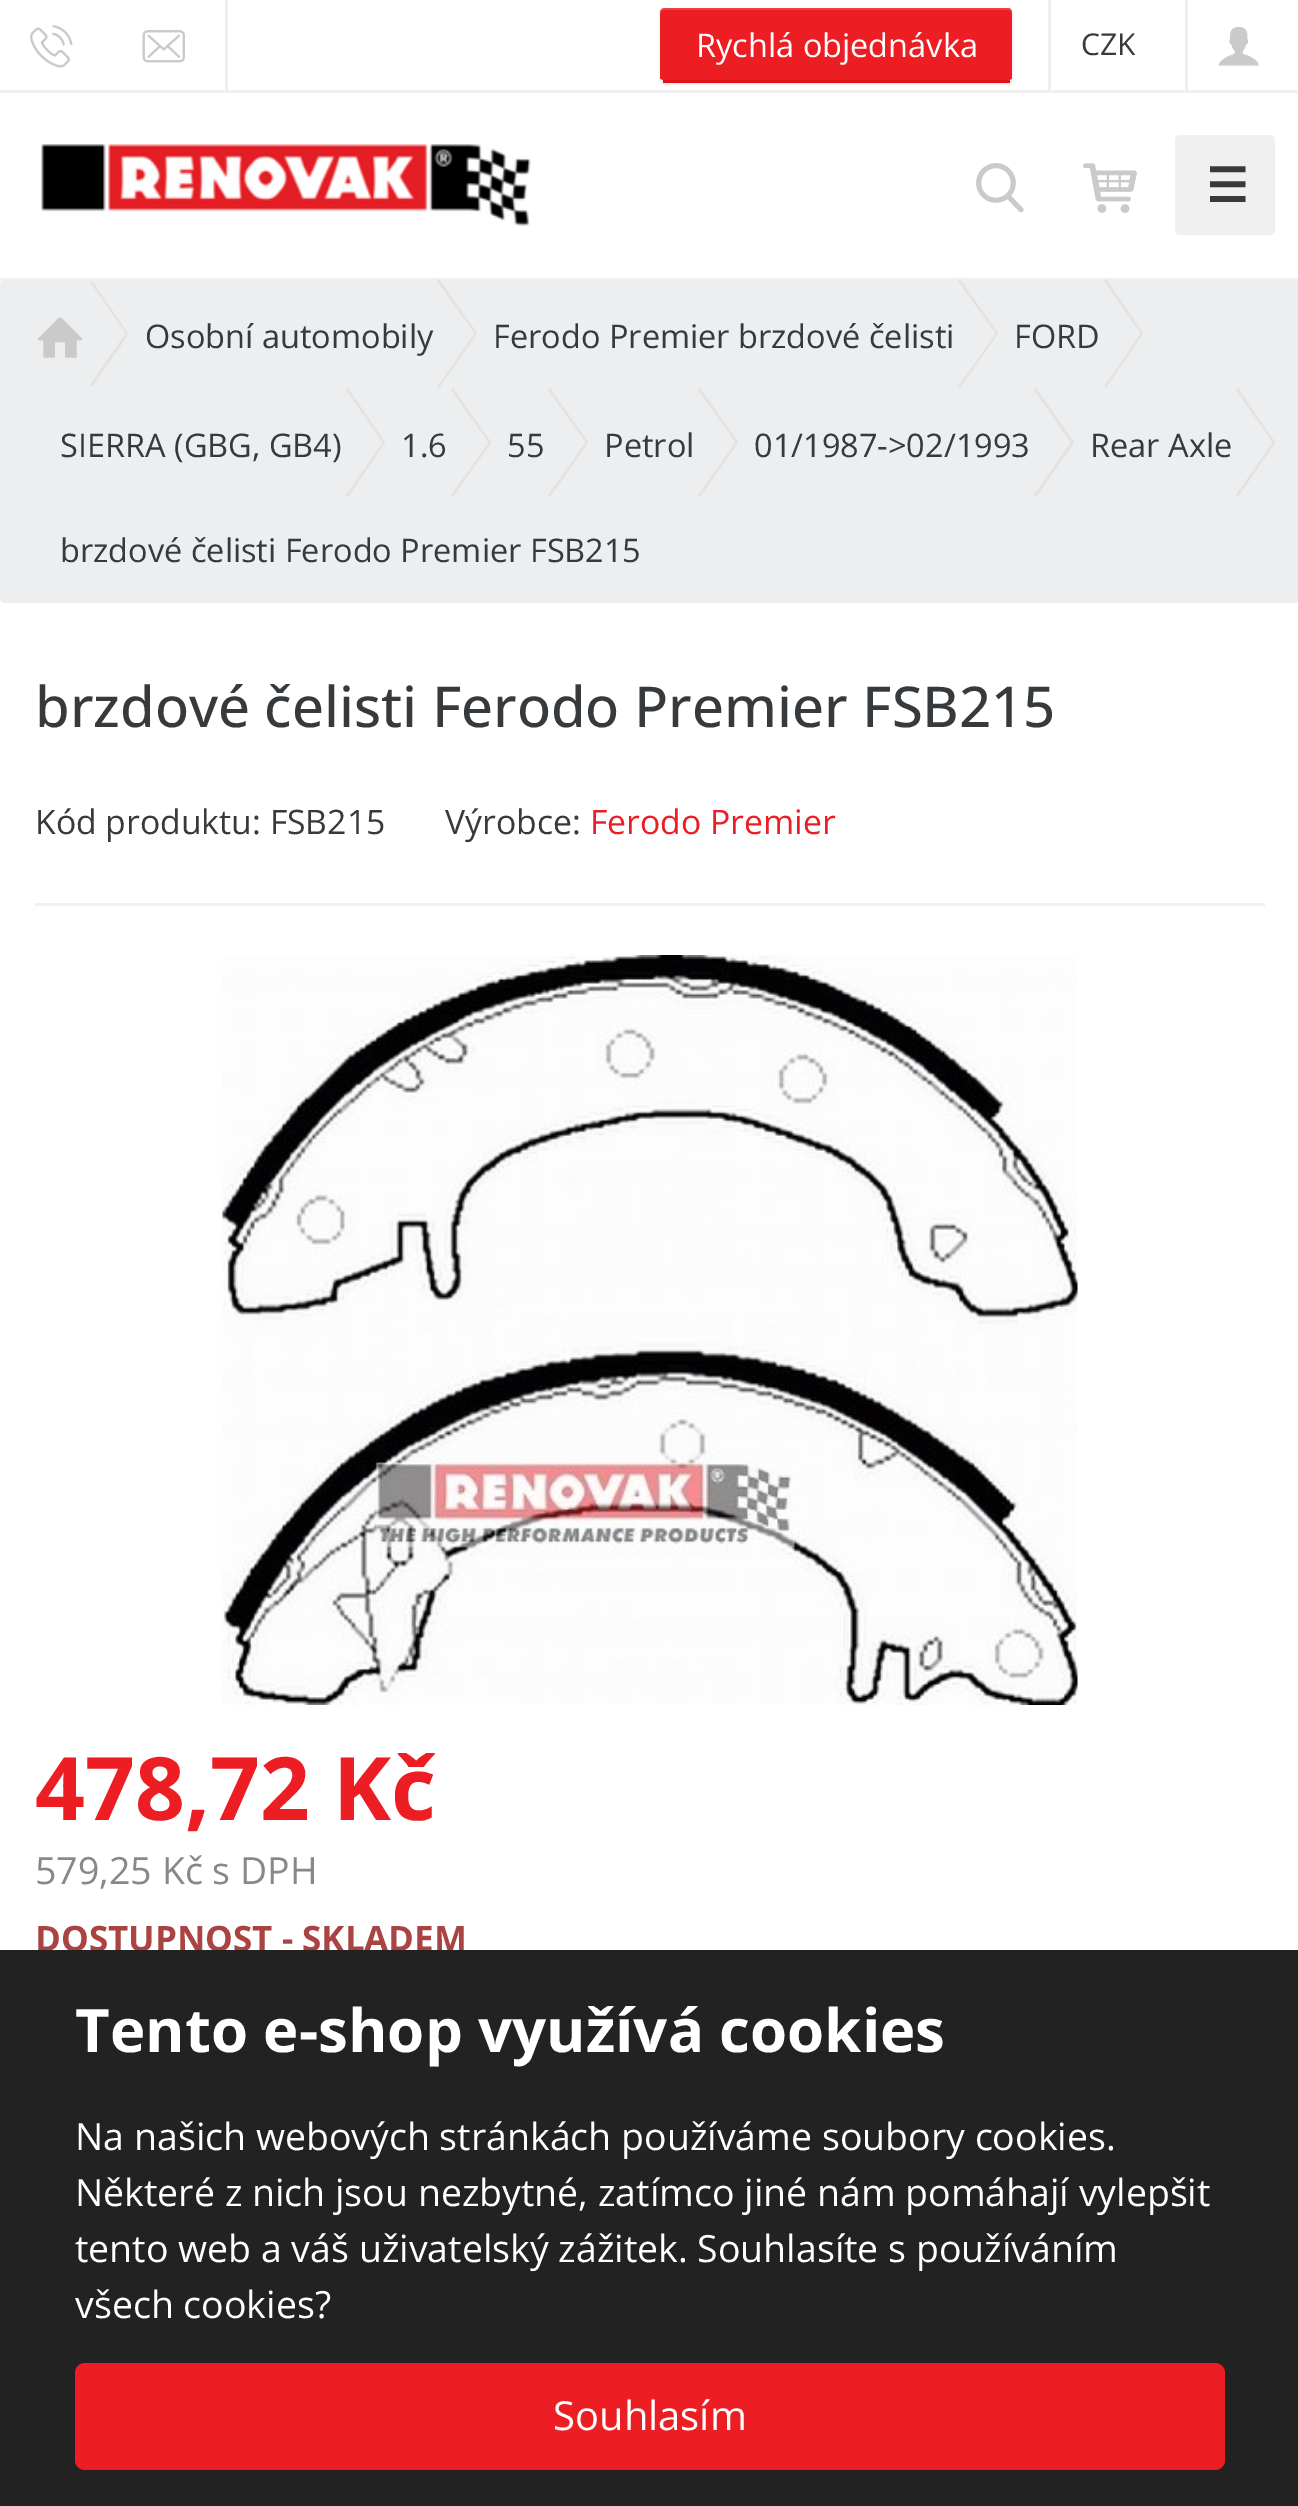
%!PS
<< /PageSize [1298 2506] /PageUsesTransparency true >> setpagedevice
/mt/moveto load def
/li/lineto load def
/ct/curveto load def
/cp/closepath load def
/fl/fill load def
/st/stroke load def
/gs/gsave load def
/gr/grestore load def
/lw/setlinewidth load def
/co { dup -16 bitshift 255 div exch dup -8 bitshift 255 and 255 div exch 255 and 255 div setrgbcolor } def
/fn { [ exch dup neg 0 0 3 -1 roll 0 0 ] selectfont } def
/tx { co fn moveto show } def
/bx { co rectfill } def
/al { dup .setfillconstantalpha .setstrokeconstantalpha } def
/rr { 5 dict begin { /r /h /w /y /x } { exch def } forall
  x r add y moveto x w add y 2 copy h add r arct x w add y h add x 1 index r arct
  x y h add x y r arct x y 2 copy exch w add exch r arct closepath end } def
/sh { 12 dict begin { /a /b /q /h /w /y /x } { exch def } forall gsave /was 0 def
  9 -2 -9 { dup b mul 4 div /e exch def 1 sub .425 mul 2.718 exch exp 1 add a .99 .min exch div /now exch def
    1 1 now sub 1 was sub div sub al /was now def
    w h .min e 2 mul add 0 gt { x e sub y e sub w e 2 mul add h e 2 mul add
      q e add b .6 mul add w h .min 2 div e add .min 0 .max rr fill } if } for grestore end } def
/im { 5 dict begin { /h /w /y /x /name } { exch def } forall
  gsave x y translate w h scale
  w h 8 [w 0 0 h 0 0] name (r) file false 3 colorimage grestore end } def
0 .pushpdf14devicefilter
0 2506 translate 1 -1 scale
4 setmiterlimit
0 0 1298 2506 16#FFFFFF bx
0 90 1298 3 16#F0F0F0 bx
225 0 3 90 16#F0F0F0 bx
(media/1.raw) 30 25 43 43 im
(media/2.raw) 142 30 43 33 im
16#000000 co
660 10 353 75 5 1 .07 sh
16#ED1D24 co
665 8 mt 1008 8 li 1010 8 1012 10 1012 12 ct 1012 78 li 1012 79 1010 80 1008 80 ct 665 80 li 662 80 660 79 660 78 ct 660 12 li 660 10 662 8 665 8 ct cp fl
0.15 al
16#FFFFFF co
665 10 mt 1008 10 li 1010 10 1012 12 1012 15 ct 1012 79 li 1012 78 li 1012 12 li 1012 10 1010 8 1008 8 ct 665 8 li 662 8 660 10 660 12 ct 660 15 li 660 12 662 10 665 10 ct cp fl
1 al
663 80 347 3 16#DF1219 bx
1048 0 3 90 16#F0F0F0 bx
1185 0 3 90 16#F0F0F0 bx
(media/3.raw) 1218 27 41 39 im
16#ECEEEF co
0 280 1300 323 5 rr fl
0 278 1298 3 16#F0F0F0 bx
(media/4.raw) 41 144 490 82 im
(media/5.raw) 976 163 48 50 im
(media/6.raw) 1083 163 54 50 im
1176.5 136.5 97 97 3.5 rr gs fl gr
3 lw
st
(media/7.raw) 37 317 46 41 im
16#E3E3E3 co
90 282 mt 92 281 li 128 333 li 126 334 li cp fl
126 333 mt 128 335 li 92 387 li 90 385 li cp fl
437 281 mt 439 279 li 477 333 li 475 334 li cp fl
475 333 mt 477 334 li 439 388 li 437 387 li cp fl
958 281 mt 960 279 li 998 333 li 996 334 li cp fl
996 333 mt 998 334 li 960 388 li 958 387 li cp fl
1104 281 mt 1106 279 li 1143 333 li 1141 334 li cp fl
1141 333 mt 1143 334 li 1106 388 li 1104 387 li cp fl
346 390 mt 348 388 li 385 442 li 383 443 li cp fl
383 442 mt 385 443 li 348 497 li 346 495 li cp fl
451 390 mt 453 388 li 491 442 li 489 443 li cp fl
489 442 mt 491 443 li 453 497 li 451 495 li cp fl
548 390 mt 550 388 li 588 442 li 586 443 li cp fl
586 442 mt 588 443 li 550 497 li 548 495 li cp fl
698 390 mt 700 388 li 738 442 li 736 443 li cp fl
736 442 mt 738 443 li 700 497 li 698 495 li cp fl
1034 390 mt 1036 388 li 1074 442 li 1071 443 li cp fl
1071 442 mt 1074 443 li 1036 497 li 1034 495 li cp fl
1236 390 mt 1238 388 li 1275 442 li 1273 443 li cp fl
1273 442 mt 1275 443 li 1238 497 li 1236 495 li cp fl
35 903 1230 3 16#F0F0F0 bx
(media/8.raw) 222 955 856 750 im
(Rychlá objednávka) 696 57 /OpenSans-Regular 32.5 16#FFFFFF tx
(CZK) 1081 55 /OpenSans-Regular 30 16#373A3C tx
(☰) 1206 202 /DejaVuSans-Bold 47 16#373A3C tx
(Osobní automobily) 145 348 /OpenSans-Regular 32.5 16#373A3C tx
(Ferodo Premier brzdové čelisti) 493 348 /OpenSans-Regular 32.5 16#373A3C tx
(FORD) 1014 348 /OpenSans-Regular 32.5 16#373A3C tx
(SIERRA \(GBG, GB4\)) 60 457 /OpenSans-Regular 32.5 16#373A3C tx
(1.6) 401 457 /OpenSans-Regular 32.5 16#373A3C tx
(55) 507 457 /OpenSans-Regular 32.5 16#373A3C tx
(Petrol) 604 457 /OpenSans-Regular 32.5 16#373A3C tx
(01/1987->02/1993) 754 457 /OpenSans-Regular 32.5 16#373A3C tx
(Rear Axle) 1090 457 /OpenSans-Regular 32.5 16#373A3C tx
(brzdové čelisti Ferodo Premier FSB215) 60 562 /OpenSans-Regular 32.5 16#373A3C tx
(brzdové čelisti Ferodo Premier FSB215) 35 727 /OpenSans-Medium 56.25 16#373A3C tx
(Kód produktu: FSB215) 35 834 /OpenSans-Regular 33.75 16#373A3C tx
(Výrobce:) 445 834 /OpenSans-Regular 33.75 16#373A3C tx
(Ferodo Premier) 590 834 /OpenSans-Regular 33.75 16#ED1D24 tx
(478,72 Kč) 35 1820 /OpenSans-Bold 87.5 16#ED1D24 tx
(579,25 Kč s DPH) 35 1884 /OpenSans-Regular 37.5 16#888888 tx
(DOSTUPNOST - SKLADEM) 35 1951 /OpenSans-Bold 35 16#A94442 tx
0 1950 1298 556 16#222222 bx
(Tento e-shop využívá cookies) 75 2052 /OpenSans-Bold 60 16#FFFFFF tx
(Na našich webových stránkách používáme soubory cookies.) 75 2150 /OpenSans-Regular 37.5 16#FFFFFF tx
(Některé z nich jsou nezbytné, zatímco jiné nám pomáhají vylepšit) 75 2206 /OpenSans-Regular 37.5 16#FFFFFF tx
(tento web a váš uživatelský zážitek. Souhlasíte s používáním) 75 2262 /OpenSans-Regular 37.5 16#FFFFFF tx
(všech cookies?) 75 2318 /OpenSans-Regular 37.5 16#FFFFFF tx
16#ED1D24 co
75 2363 1150 107 10 rr fl
(Souhlasím) 553 2430 /OpenSans-Regular 40 16#FFFFFF tx
.poppdf14devicefilter showpage
